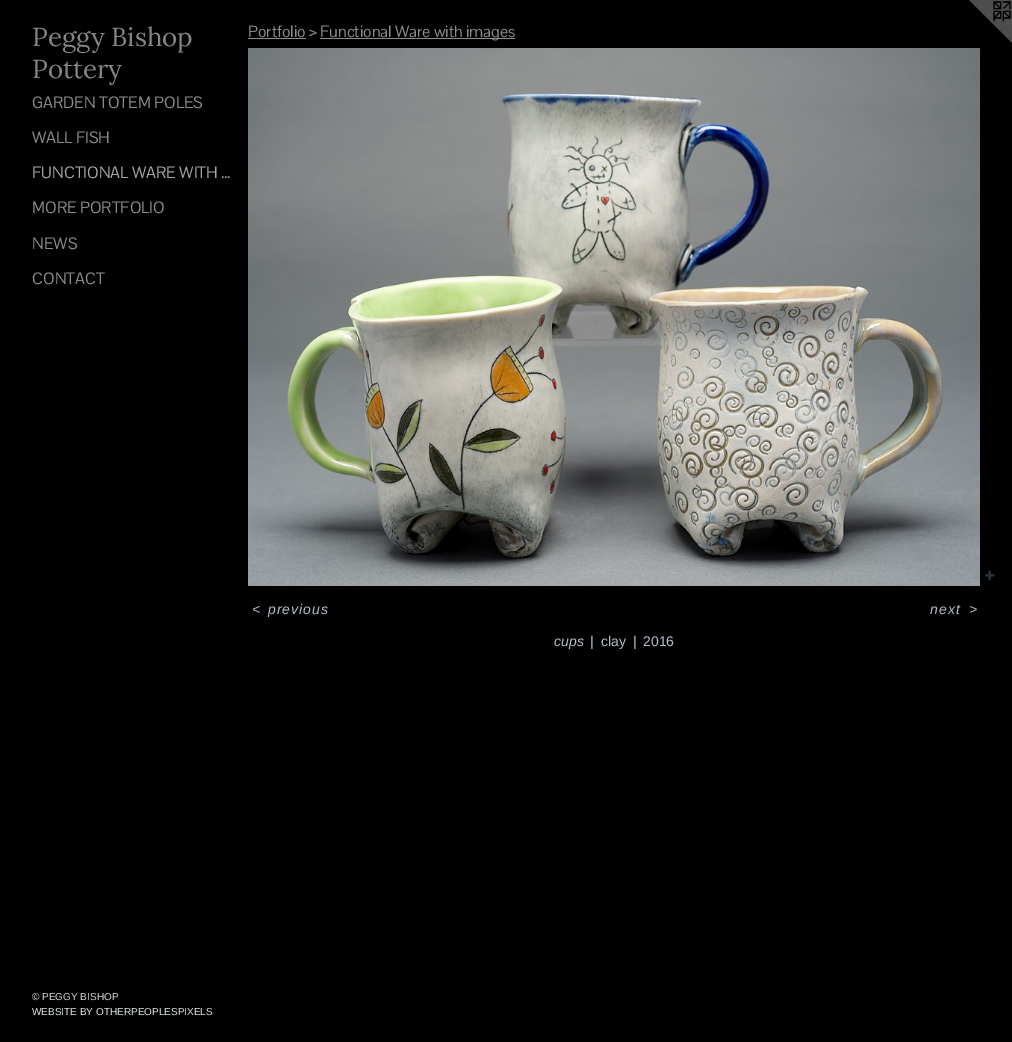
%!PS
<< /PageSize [1012 1042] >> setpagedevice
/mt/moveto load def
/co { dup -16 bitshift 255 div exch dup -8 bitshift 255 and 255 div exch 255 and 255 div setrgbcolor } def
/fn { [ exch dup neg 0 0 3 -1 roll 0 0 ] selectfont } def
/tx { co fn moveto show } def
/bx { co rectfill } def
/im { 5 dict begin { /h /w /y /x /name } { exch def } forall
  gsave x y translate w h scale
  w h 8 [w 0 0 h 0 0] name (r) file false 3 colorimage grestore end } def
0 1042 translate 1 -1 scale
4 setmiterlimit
0 0 1012 1042 16#000000 bx
248 38 58 1 16#8C8C8C bx
320 38 195 1 16#8C8C8C bx
(media/1.raw) 248 48 732 538 im
(media/2.raw) 985 570 10 10 im
(media/3.raw) 969 0 43 43 im
(Peggy Bishop) 32 46 /Lora-Regular 26 16#858585 tx
(Pottery) 32 78 /Lora-Regular 26 16#858585 tx
(GARDEN TOTEM POLES) 32 108 /PontanoSans-Regular 16 16#8C8C8C tx
(WALL FISH) 32 143 /PontanoSans-Regular 16 16#8C8C8C tx
(FUNCTIONAL WARE WITH …) 32 178 /PontanoSans-Regular 16 16#A6A6A6 tx
(MORE PORTFOLIO) 32 213 /PontanoSans-Regular 16 16#8C8C8C tx
(NEWS) 32 249 /PontanoSans-Regular 16 16#8C8C8C tx
(CONTACT) 32 284 /PontanoSans-Regular 16 16#8C8C8C tx
(© PEGGY BISHOP) 32 1000 /LiberationSans-Regular 10 16#D6D6D6 tx
(WEBSITE BY OTHERPEOPLESPIXELS) 32 1015 /LiberationSans-Regular 10 16#DFE5E7 tx
(Portfolio >) 248 37 /PontanoSans-Regular 16 16#8C8C8C tx
(Functional Ware with images) 320 37 /PontanoSans-Regular 16 16#8C8C8C tx
/LiberationSans-Italic 14 fn
16#B3BFCB co
252 614 mt 1 0 (<) ashow
268 614 mt 1 0 (previous) ashow
930 614 mt 1 0 (next) ashow
969 614 mt 1 0 (>) ashow
(cups) 554 646 /LiberationSans-Italic 14 16#B3BFCB tx
(|) 590 646 /LiberationSans-Regular 14 16#B3BFCB tx
(clay) 601 646 /LiberationSans-Regular 14 16#B3BFCB tx
(|) 633 646 /LiberationSans-Regular 14 16#B3BFCB tx
(2016) 643 646 /LiberationSans-Regular 14 16#B3BFCB tx
showpage
